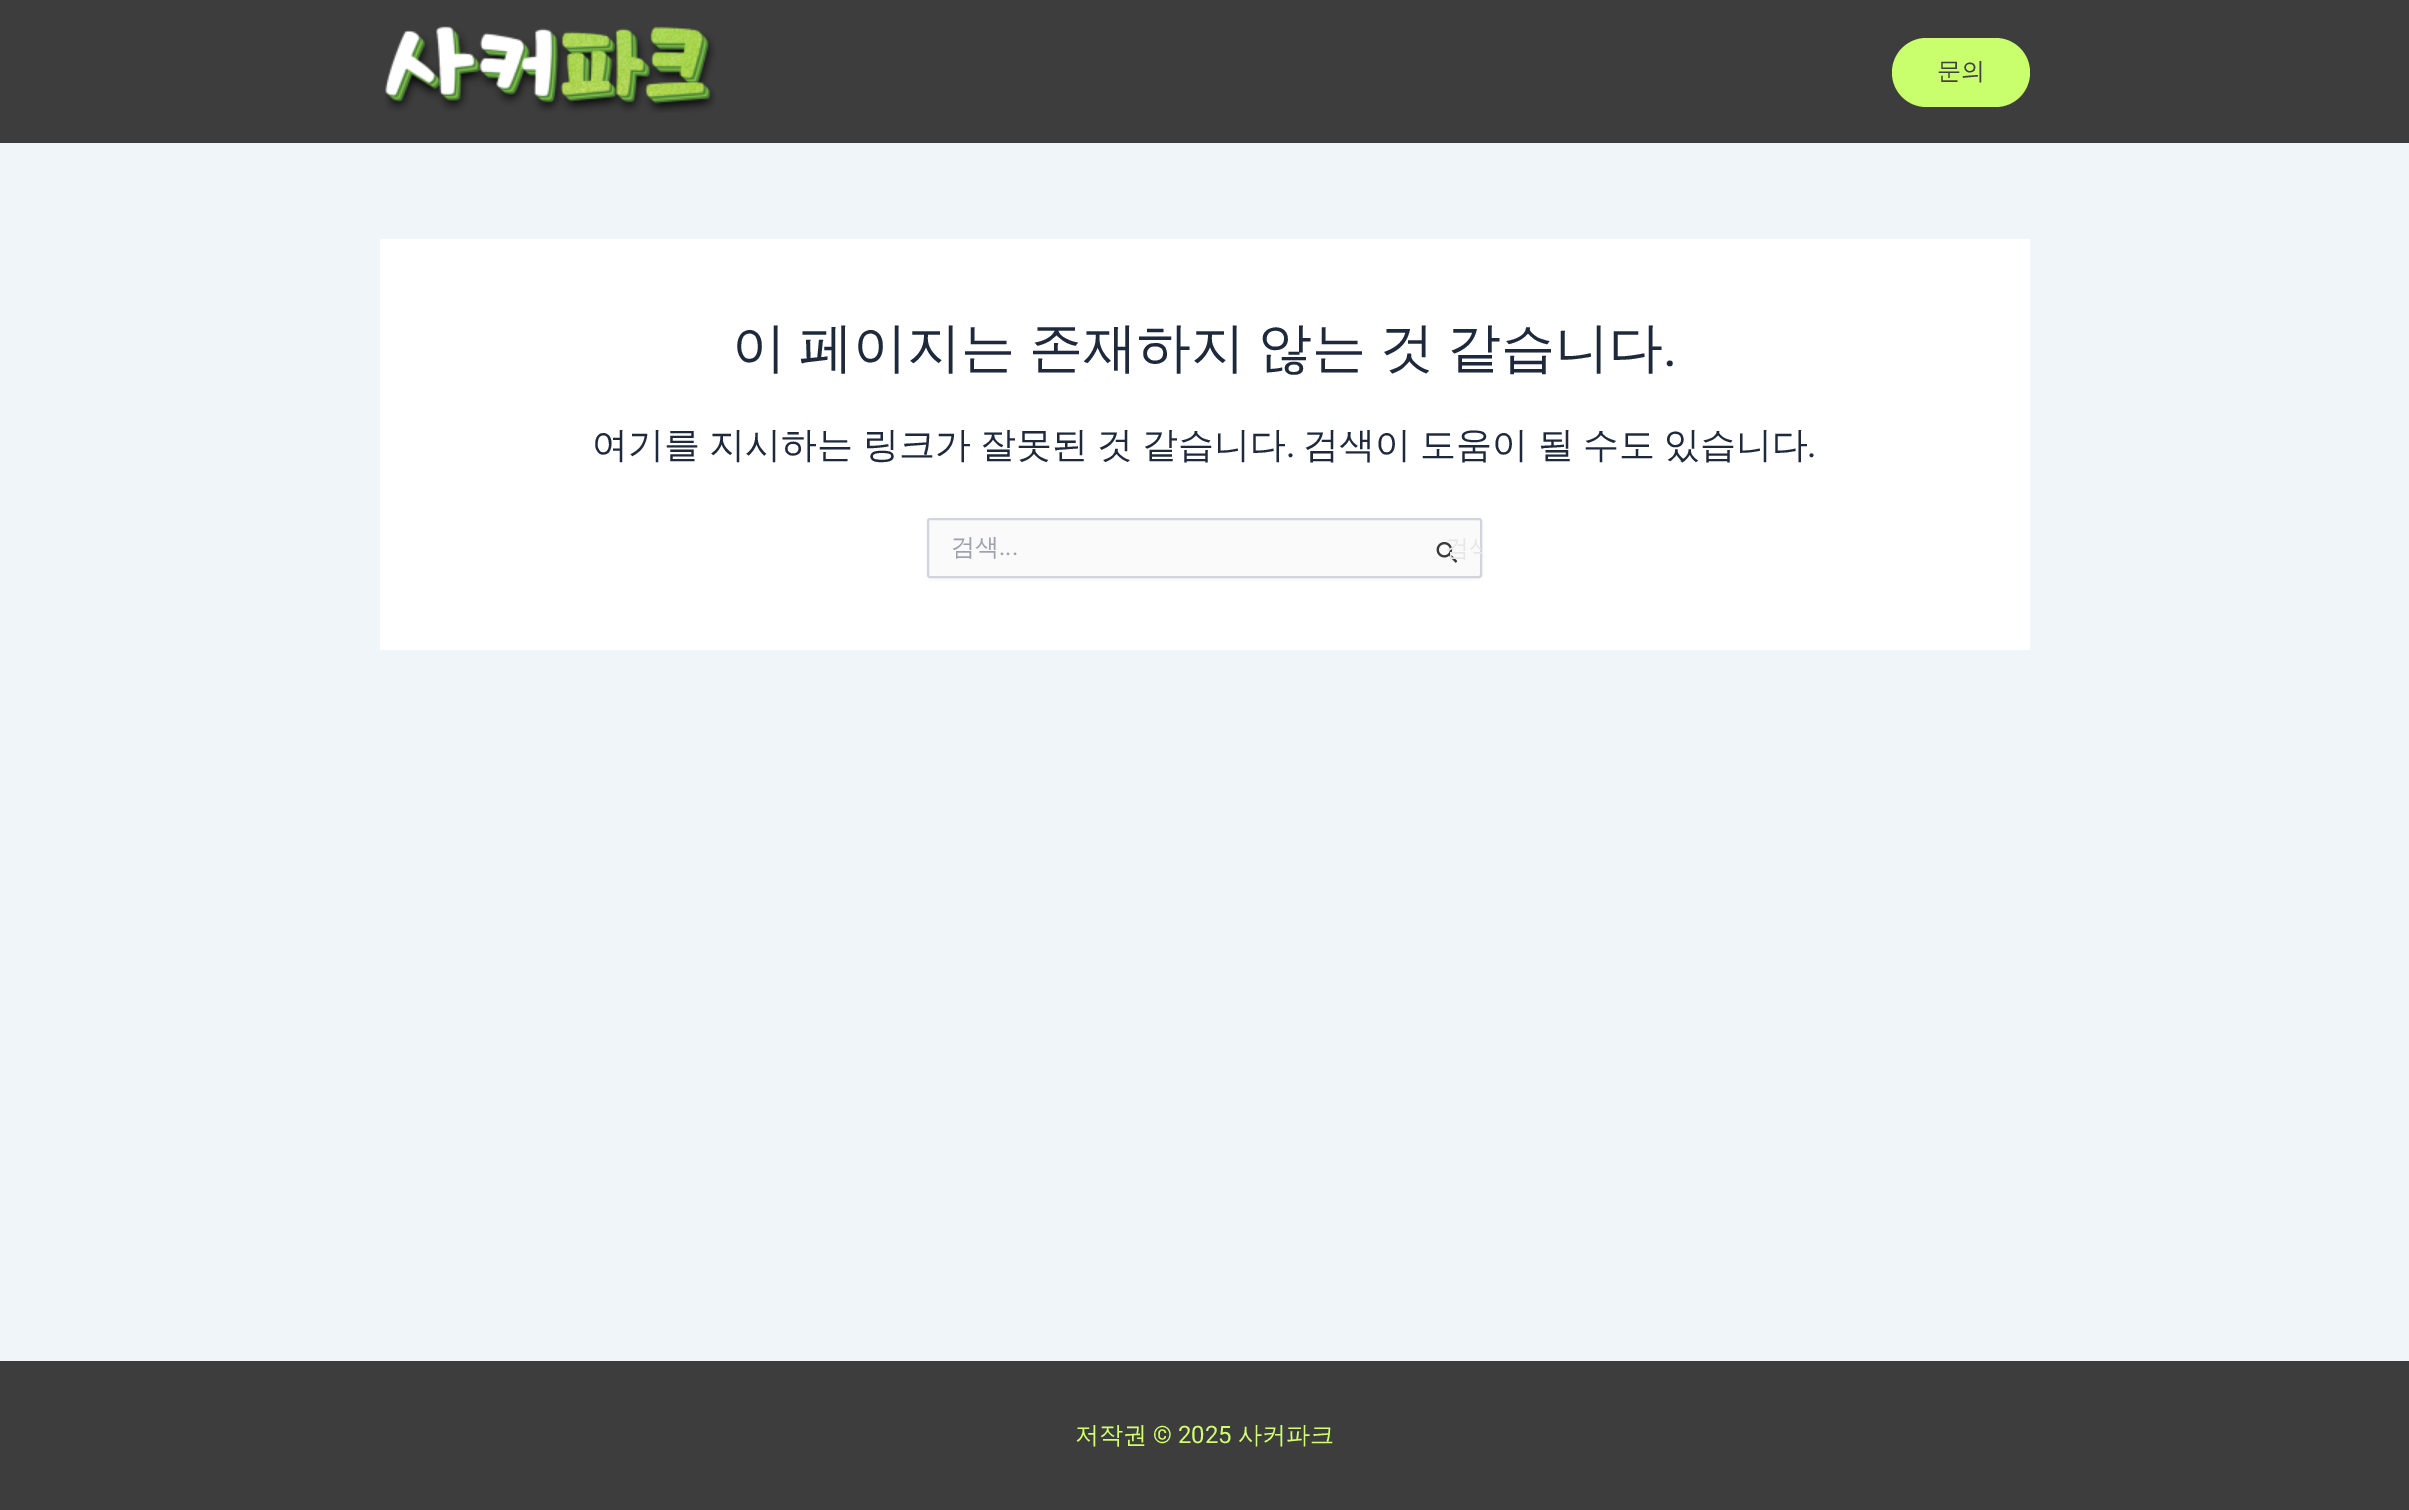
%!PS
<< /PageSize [2409 1510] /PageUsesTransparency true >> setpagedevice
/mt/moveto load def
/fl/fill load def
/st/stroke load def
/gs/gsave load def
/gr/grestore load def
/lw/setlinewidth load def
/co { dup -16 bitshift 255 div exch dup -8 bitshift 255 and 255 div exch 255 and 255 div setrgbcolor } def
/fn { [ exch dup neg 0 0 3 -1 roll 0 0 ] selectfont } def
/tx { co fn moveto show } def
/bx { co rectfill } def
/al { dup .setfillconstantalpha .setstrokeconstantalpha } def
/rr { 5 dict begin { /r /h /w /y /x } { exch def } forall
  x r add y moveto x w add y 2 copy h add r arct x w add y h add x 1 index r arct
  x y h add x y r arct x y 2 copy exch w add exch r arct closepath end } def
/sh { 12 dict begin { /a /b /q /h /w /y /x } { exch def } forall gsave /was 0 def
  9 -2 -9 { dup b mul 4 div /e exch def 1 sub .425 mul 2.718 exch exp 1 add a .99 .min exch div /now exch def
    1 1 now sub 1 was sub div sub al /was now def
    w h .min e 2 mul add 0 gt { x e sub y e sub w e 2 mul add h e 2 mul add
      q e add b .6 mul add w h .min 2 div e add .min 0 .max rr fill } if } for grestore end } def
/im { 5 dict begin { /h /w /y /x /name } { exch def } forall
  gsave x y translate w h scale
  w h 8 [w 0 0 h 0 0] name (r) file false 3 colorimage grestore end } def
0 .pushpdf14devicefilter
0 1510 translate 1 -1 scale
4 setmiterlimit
0 0 2409 1510 16#F0F5FA bx
0 0 2409 143 16#3D3D3D bx
(media/1.raw) 385 26 331 87 im
16#C9FF6D co
1892 38 138 69 34.5 rr fl
380 239 1650 411 16#FFFFFF bx
16#000000 co
927 519 555 60 3 1.5 .05 sh
16#FAFAFA co
928 519 553 58 2 rr gs fl gr
16#D1D5DB co
2 lw
st
(media/2.raw) 1436 542 21 21 im
0 1361 2409 149 16#3D3D3D bx
(문의) 1937 79 /WenQuanYiZenHei-Medium 24 16#414141 tx
/WenQuanYiZenHei-Medium 54 fn
16#1E293B co
732 366 mt -2.75 0 32 (이 페이지는 존재하지 않는 것 같습니다) widthshow
(.) 1663 366 /Roboto-Regular 54 16#1E293B tx
/WenQuanYiZenHei-Medium 36 fn
592 457 mt -1.5 0 32 (여기를 지시하는 링크가 잘못된 것 같습니다) widthshow
(.) 1286 457 /Roboto-Regular 36 16#1E293B tx
/WenQuanYiZenHei-Medium 36 fn
1303 457 mt -1.5 0 32 (검색이 도움이 될 수도 있습니다) widthshow
(.) 1807 457 /Roboto-Regular 36 16#1E293B tx
(검색) 951 555 /WenQuanYiZenHei-Medium 24 16#9CA3AF tx
(...) 999 555 /Roboto-Regular 24 16#9CA3AF tx
gs
1415 518 67 63 3 rr clip newpath
(검색) 1445 556 /WenQuanYiZenHei-Medium 24 16#E7E7E7 tx
gr
(저작권) 1075 1443 /WenQuanYiZenHei-Medium 24 16#D0FF70 tx
(© 2025) 1153 1443 /Roboto-Regular 24 16#D0FF70 tx
(사커파크) 1238 1443 /WenQuanYiZenHei-Medium 24 16#D0FF70 tx
.poppdf14devicefilter showpage
